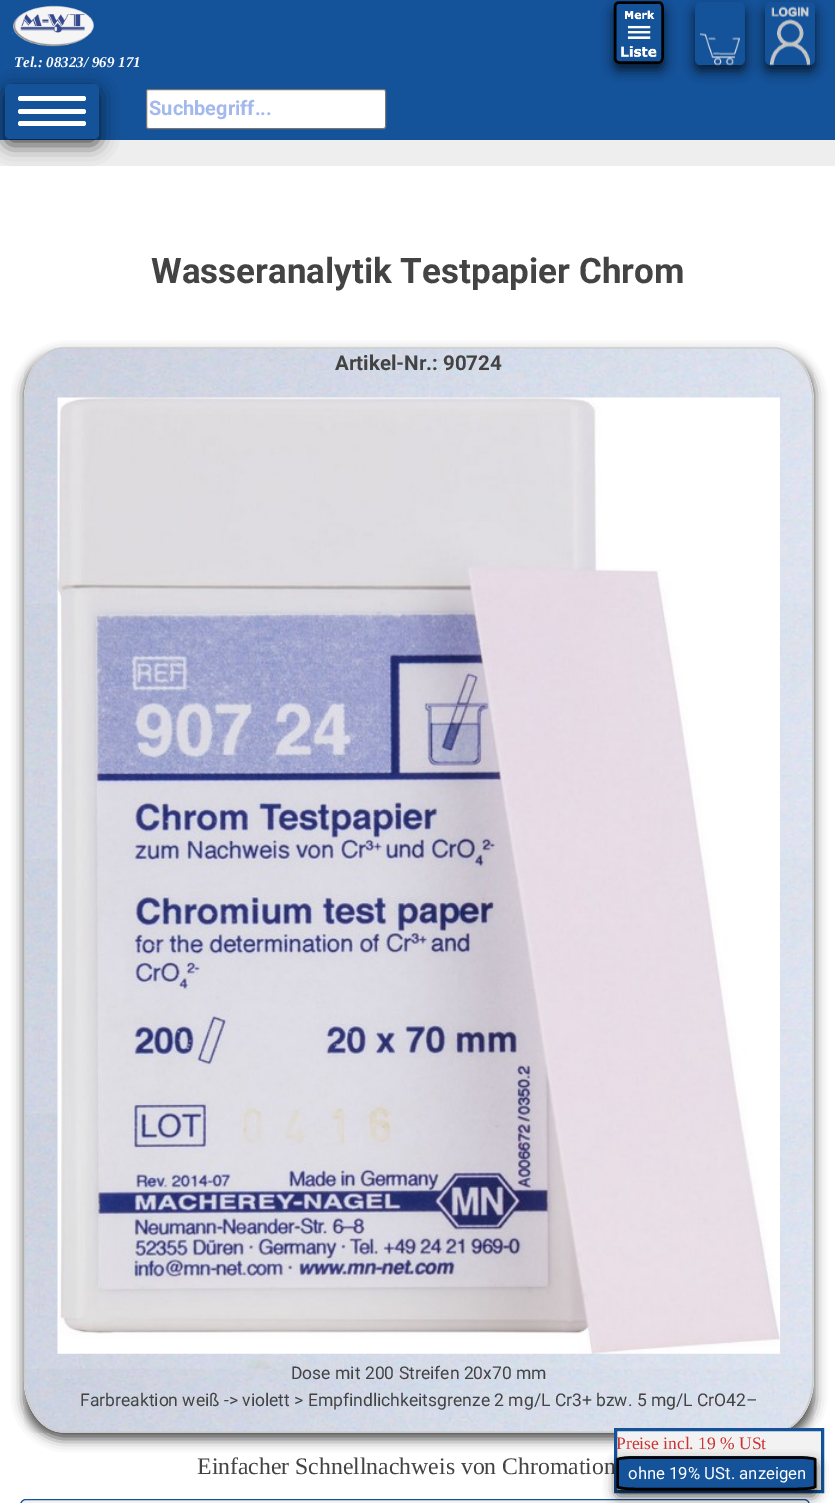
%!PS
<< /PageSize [835 1503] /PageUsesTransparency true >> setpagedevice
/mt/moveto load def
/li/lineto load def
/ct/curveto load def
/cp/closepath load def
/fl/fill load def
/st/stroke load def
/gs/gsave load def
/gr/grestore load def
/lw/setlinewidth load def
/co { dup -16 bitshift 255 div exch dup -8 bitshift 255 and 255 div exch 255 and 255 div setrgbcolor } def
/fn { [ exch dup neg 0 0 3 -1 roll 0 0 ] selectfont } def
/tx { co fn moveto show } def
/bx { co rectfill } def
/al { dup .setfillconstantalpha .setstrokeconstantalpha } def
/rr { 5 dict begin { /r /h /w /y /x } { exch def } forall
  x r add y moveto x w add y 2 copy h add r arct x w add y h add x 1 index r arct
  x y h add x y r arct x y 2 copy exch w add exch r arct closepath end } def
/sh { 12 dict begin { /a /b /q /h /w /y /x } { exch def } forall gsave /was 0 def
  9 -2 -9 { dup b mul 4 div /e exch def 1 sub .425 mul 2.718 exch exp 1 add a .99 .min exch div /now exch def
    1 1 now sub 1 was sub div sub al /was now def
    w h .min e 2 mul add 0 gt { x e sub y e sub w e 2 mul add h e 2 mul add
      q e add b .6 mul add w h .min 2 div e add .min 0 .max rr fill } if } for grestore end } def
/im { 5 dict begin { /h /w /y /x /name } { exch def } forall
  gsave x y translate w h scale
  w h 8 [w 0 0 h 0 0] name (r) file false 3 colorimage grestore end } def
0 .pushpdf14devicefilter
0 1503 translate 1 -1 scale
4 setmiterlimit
0 0 835 1503 16#FFFFFF bx
0 0 835 140 16#14529A bx
(media/1.raw) 12 5 82 42 im
16#FFFFFF co
146.5 89.5 239 39 2 rr gs fl gr
16#767676 co
st
16#000000 co
614 8 50 62 5 6 .7 sh
16#14529A co
619 1 mt 659 1 li 662 1 664 4 664 8 ct 664 58 li 664 61 662 64 659 64 ct 619 64 li 616 64 614 61 614 58 ct 614 8 li 614 4 616 1 619 1 ct cp fl
(media/2.raw) 621 10 36 48 im
16#000000 co
2.5 lw
619 2.5 mt 659 2.5 li 661 2.5 662.5 4.5 662.5 7.5 ct 662.5 57.5 li 662.5 60.5 661 62.5 659 62.5 ct 619 62.5 li 616.5 62.5 615 60.5 615 57.5 ct 615 7.5 li 615 4.5 616.5 2.5 619 2.5 ct cp st
695 9 50 62 5 6 .7 sh
16#14529A co
700 2 mt 740 2 li 743 2 745 5 745 9 ct 745 59 li 745 62 743 65 740 65 ct 700 65 li 697 65 695 62 695 59 ct 695 9 li 695 5 697 2 700 2 ct cp fl
(media/3.raw) 700 33 40 33 im
16#000000 co
765 9 50 62 5 6 .7 sh
16#14529A co
770 2 mt 810 2 li 813 2 815 5 815 9 ct 815 59 li 815 62 813 65 810 65 ct 770 65 li 767 65 765 62 765 59 ct 765 9 li 765 5 767 2 770 2 ct cp fl
(media/4.raw) 770 6 40 60 im
0 140 835 26 16#EEEEEE bx
16#000000 co
5 90 94 55 5 9.5 .7 sh
16#14529A co
5 84 94 55 5 rr fl
16#FFFFFF co
18 96 68 5 2.5 rr fl
18 109 68 5 2.5 rr fl
18 121 68 5 2.5 rr fl
16#000000 co
24 354 790 1085 40 6 .7 sh
16#EEEEEE co
63 348 mt 774 348 li 796 348 814 372 814 402 ct 814 1378 li 814 1408 796 1432 774 1432 ct 63 1432 li 41 1432 24 1408 24 1378 ct 24 402 li 24 372 41 348 63 348 ct cp fl
(media/5.raw) 24 347 790 1086 im
16#CCCCCC co
1.2 lw
63 348 mt 774 348 li 795.5 348 813 372 813 402 ct 813 1378 li 813 1408 795.5 1432 774 1432 ct 63 1432 li 42 1432 24.5 1408 24.5 1378 ct 24.5 402 li 24.5 372 42 348 63 348 ct cp st
(media/6.raw) 57 397 723 957 im
16#F2F2F2 co
20.5 1499.5 789 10 5.5 rr gs fl gr
16#14529A co
1 lw
st
(Tel.: 08323/ 969 171) 14 67 /LiberationSerif-BoldItalic 15 16#FFFFFF tx
(Suchbegriff...) 149 115 /Roboto-Bold 20 16#A3B8EC tx
(Wasseranalytik Testpapier Chrom) 151 283 /Roboto-Bold 35 16#434343 tx
(Artikel-Nr.: 90724) 335 370 /Roboto-Bold 20.5 16#434343 tx
(Dose mit 200 Streifen 20x70 mm) 291 1379 /Roboto-Regular 17.5 16#434343 tx
(Farbreaktion weiß -> violett > Empfindlichkeitsgrenze 2 mg/L Cr3+ bzw. 5 mg/L CrO42–) 80 1406 /Roboto-Regular 17.5 16#434343 tx
(Einfacher Schnellnachweis von Chromation) 197 1474 /LiberationSerif-Regular 23.75 16#434343 tx
16#F2F2F2 co
615.5 1429.5 mt 822.5 1429.5 li 822.5 1491.5 li 615.5 1491.5 li cp gs fl gr
16#14529A co
3 lw
st
(Preise incl. 19 % USt) 616 1449 /LiberationSerif-Regular 17.5 16#CC3333 tx
16#000000 co
616 1463 200 33 3 6 .7 sh
16#14529A co
636 1456 mt 796 1456 li 807 1456 816 1458 816 1460 ct 816 1487 li 816 1488 807 1490 796 1490 ct 636 1490 li 625 1490 616 1488 616 1487 ct 616 1460 li 616 1458 625 1456 636 1456 ct cp fl
16#000000 co
2.5 lw
636 1457.5 mt 796 1457.5 li 806.5 1457.5 815 1458.5 815 1459.5 ct 815 1486.5 li 815 1488 806.5 1489 796 1489 ct 636 1489 li 626 1489 617.5 1488 617.5 1486.5 ct 617.5 1459.5 li 617.5 1458.5 626 1457.5 636 1457.5 ct cp st
(ohne 19% USt. anzeigen) 628 1479 /Roboto-Regular 16.75 16#FFFFFF tx
.poppdf14devicefilter showpage
